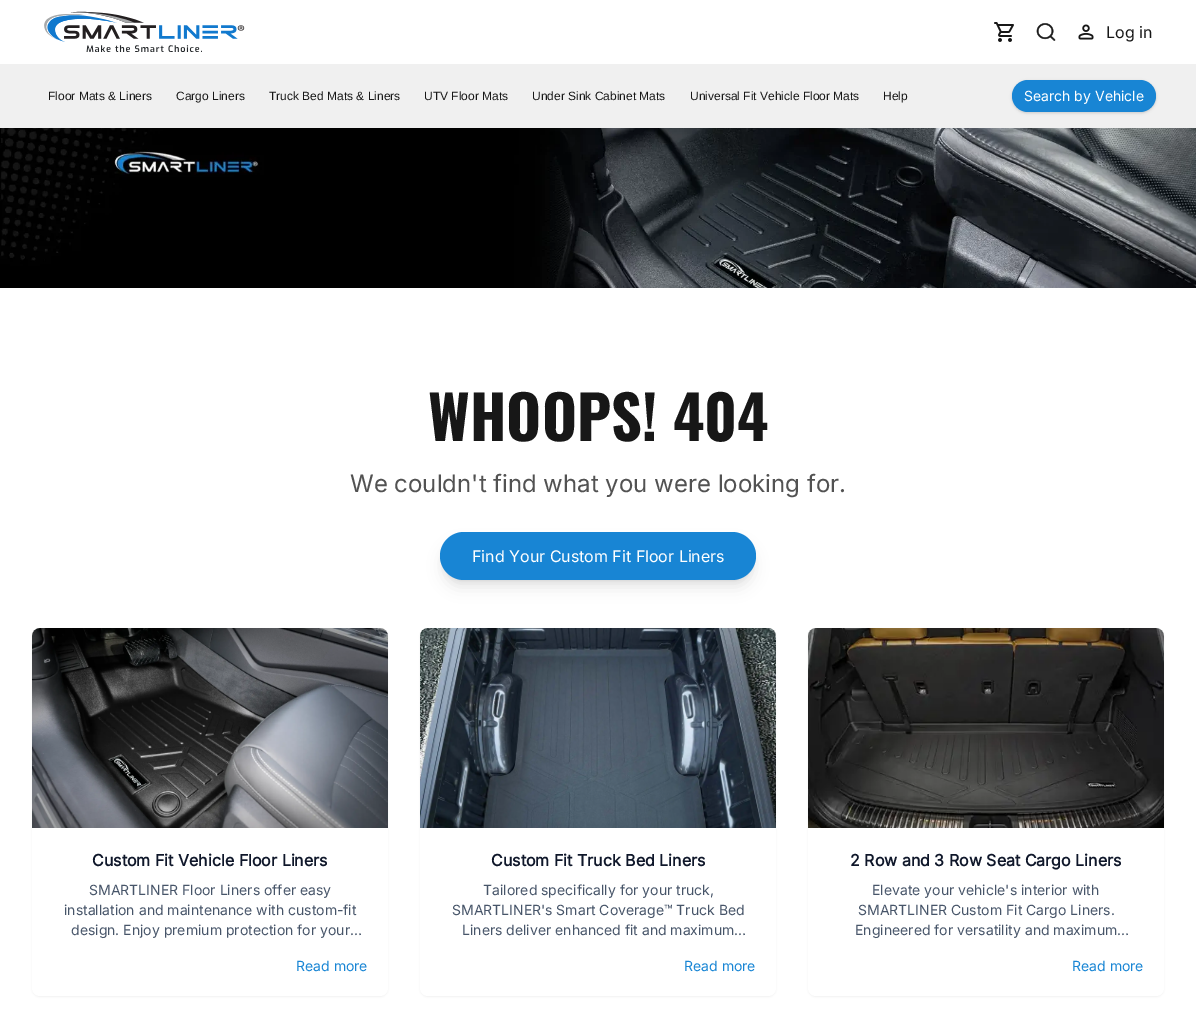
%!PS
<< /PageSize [1196 1021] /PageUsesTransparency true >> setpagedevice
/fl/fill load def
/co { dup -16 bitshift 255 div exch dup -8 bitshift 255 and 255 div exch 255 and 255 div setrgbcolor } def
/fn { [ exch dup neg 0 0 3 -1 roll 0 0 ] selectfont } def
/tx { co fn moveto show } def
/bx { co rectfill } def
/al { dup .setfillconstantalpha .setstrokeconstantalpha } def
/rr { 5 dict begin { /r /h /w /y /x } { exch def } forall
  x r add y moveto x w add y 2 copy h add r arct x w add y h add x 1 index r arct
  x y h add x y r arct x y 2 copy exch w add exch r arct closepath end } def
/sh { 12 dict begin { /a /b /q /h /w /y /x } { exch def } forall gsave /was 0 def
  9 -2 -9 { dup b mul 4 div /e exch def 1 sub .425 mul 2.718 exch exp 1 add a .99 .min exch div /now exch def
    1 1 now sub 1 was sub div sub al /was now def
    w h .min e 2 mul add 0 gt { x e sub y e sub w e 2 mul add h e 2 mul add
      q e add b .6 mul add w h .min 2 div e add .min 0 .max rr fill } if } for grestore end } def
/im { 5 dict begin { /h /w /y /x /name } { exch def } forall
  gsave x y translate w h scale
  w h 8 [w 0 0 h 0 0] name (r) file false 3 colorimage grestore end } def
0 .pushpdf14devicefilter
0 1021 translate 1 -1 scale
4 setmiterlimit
0 0 1196 1021 16#FFFFFF bx
(media/1.raw) 44 11 201 41 im
(media/2.raw) 994 22 20 20 im
(media/3.raw) 1036 23 20 18 im
(media/4.raw) 1078 24 16 16 im
0 64 1196 64 16#F0F0F0 bx
16#000000 co
1012 81 144 32 16 1 .06 sh
1012 81 144 32 16 1.5 .1 sh
16#1885D4 co
1012 80 144 32 16 rr fl
(media/5.raw) 0 128 1196 160 im
16#000000 co
444 540 308 40 20 3 .1 sh
443 545 310 42 21 7.5 .1 sh
16#1885D4 co
440 532 316 48 24 rr fl
16#000000 co
32 629 356 368 8 1 .05 sh
16#FFFFFF co
32 628 356 368 8 rr fl
(media/6.raw) 32 628 356 200 im
16#000000 co
420 629 356 368 8 1 .05 sh
16#FFFFFF co
420 628 356 368 8 rr fl
(media/7.raw) 420 628 356 200 im
16#000000 co
808 629 356 368 8 1 .05 sh
16#FFFFFF co
808 628 356 368 8 rr fl
(media/8.raw) 808 628 356 200 im
(Log in) 1106 38 /Inter-Regular 16 16#171717 tx
(Floor Mats & Liners) 48 100 /LiberationSans-Regular 12 16#171717 tx
(Cargo Liners) 176 100 /LiberationSans-Regular 12 16#171717 tx
(Truck Bed Mats & Liners) 269 100 /LiberationSans-Regular 12 16#171717 tx
(UTV Floor Mats) 424 100 /LiberationSans-Regular 12 16#171717 tx
(Under Sink Cabinet Mats) 532 100 /LiberationSans-Regular 12 16#171717 tx
(Universal Fit Vehicle Floor Mats) 690 100 /LiberationSans-Regular 12 16#171717 tx
(Help) 883 100 /LiberationSans-Regular 12 16#171717 tx
(Search by Vehicle) 1024 101 /Inter-Regular 14 16#FFFFFF tx
(WHOOPS! 404) 428 441 /Oswald-Bold 60 16#171717 tx
(We couldn't find what you were looking for.) 350 492 /Inter-Regular 24 16#525252 tx
(Find Your Custom Fit Floor Liners) 472 562 /Inter-Regular 16 16#FFFFFF tx
(Custom Fit Vehicle Floor Liners) 92 866 /Inter-Bold 16 16#0F172A tx
(SMARTLINER Floor Liners offer easy) 89 895 /Inter-Regular 14 16#475569 tx
(installation and maintenance with custom-fit) 64 915 /Inter-Regular 14 16#475569 tx
(design. Enjoy premium protection for your…) 71 935 /Inter-Regular 14 16#475569 tx
(Read more) 296 971 /Inter-Regular 14 16#1885D4 tx
(Custom Fit Truck Bed Liners) 491 866 /Inter-Bold 16 16#0F172A tx
(Tailored specifically for your truck,) 483 895 /Inter-Regular 14 16#475569 tx
(SMARTLINER's Smart Coverage™ Truck Bed) 452 915 /Inter-Regular 14 16#475569 tx
(Liners deliver enhanced fit and maximum…) 462 935 /Inter-Regular 14 16#475569 tx
(Read more) 684 971 /Inter-Regular 14 16#1885D4 tx
(2 Row and 3 Row Seat Cargo Liners) 850 866 /Inter-Bold 16 16#0F172A tx
(Elevate your vehicle's interior with) 872 895 /Inter-Regular 14 16#475569 tx
(SMARTLINER Custom Fit Cargo Liners.) 858 915 /Inter-Regular 14 16#475569 tx
(Engineered for versatility and maximum…) 855 935 /Inter-Regular 14 16#475569 tx
(Read more) 1072 971 /Inter-Regular 14 16#1885D4 tx
.poppdf14devicefilter showpage
